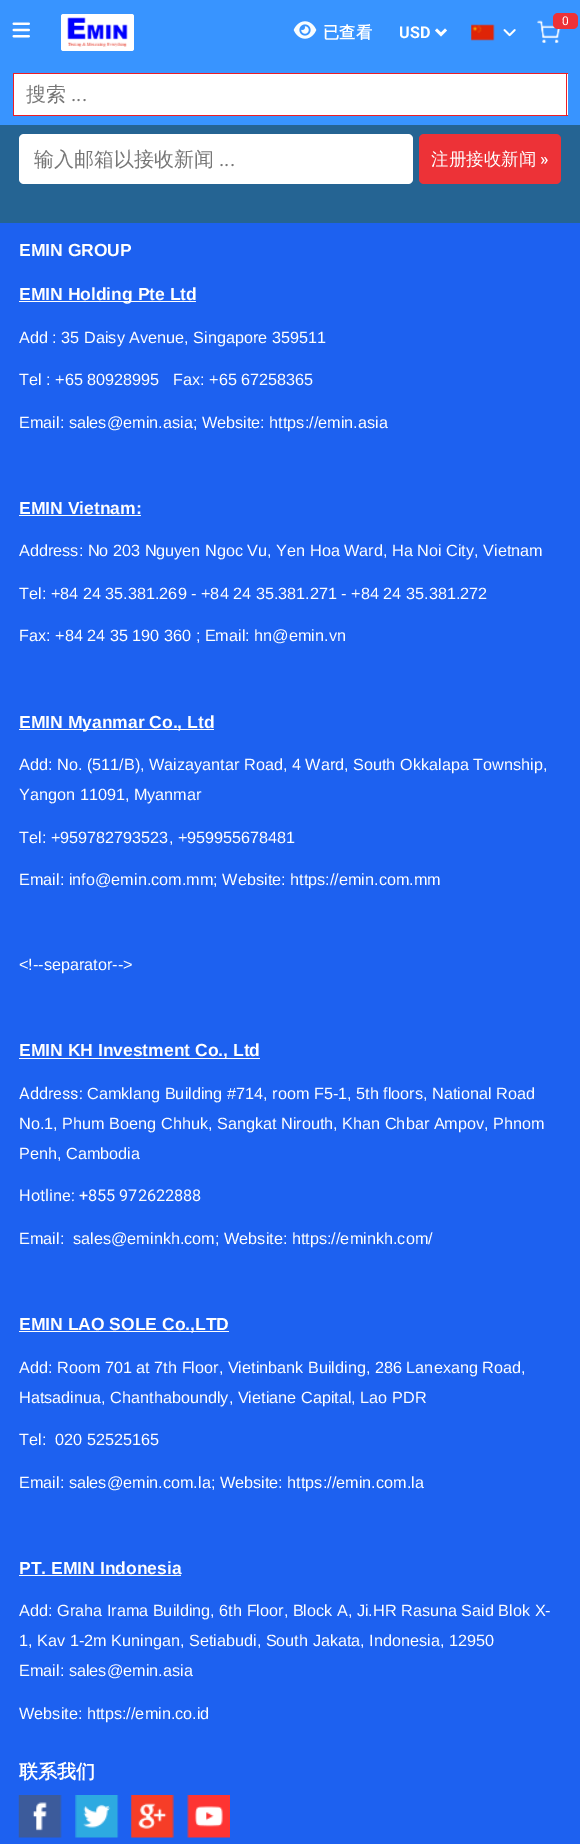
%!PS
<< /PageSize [580 1844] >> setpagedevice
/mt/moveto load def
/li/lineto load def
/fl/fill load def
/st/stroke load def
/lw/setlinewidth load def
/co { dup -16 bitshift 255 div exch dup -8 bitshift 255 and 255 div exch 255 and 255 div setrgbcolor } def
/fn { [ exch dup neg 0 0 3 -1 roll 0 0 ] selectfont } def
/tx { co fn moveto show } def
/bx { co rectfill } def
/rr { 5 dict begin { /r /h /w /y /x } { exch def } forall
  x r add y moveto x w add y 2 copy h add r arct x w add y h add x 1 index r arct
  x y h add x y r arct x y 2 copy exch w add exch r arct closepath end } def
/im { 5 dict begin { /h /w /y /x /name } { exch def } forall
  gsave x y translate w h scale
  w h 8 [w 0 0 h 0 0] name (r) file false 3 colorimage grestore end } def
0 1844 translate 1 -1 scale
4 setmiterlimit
0 0 580 1844 16#1D61F0 bx
0 0 580 125 16#3894FF bx
(media/1.raw) 12 22 18 16 im
16#FFFFFF co
61 14 73 37 2.5 rr fl
(media/2.raw) 67 17 61 30 im
(media/3.raw) 537 20 24 23 im
16#ED3237 co
553 13 25 16 5 rr fl
(media/4.raw) 293 21 24 18 im
16#FFFFFF co
2.5 lw
436 29.5 mt 441 34.5 li 446 29.5 li st
(media/5.raw) 471 24 24 17 im
(media/6.raw) 503 29 13 8 im
14 74 554 41 16#FFFFFF bx
13 73 555 1 16#ED1D25 bx
566 73 1 43 16#ED1D25 bx
13 115 555 1 16#ED1D25 bx
13 73 1 43 16#ED1D25 bx
0 125 580 98 16#256493 bx
16#FFFFFF co
19 134 394 50 5 rr fl
16#ED3237 co
419 134 142 50 5 rr fl
19 301 177 1 16#FFFFFF bx
19 515 122 1 16#FFFFFF bx
19 729 195 1 16#FFFFFF bx
19 1058 241 1 16#FFFFFF bx
19 1331 210 1 16#FFFFFF bx
19 1575 162 1 16#FFFFFF bx
(media/7.raw) 18 1795 44 43 im
(media/8.raw) 75 1795 44 43 im
(media/9.raw) 131 1795 43 43 im
(media/10.raw) 187 1795 43 43 im
(0) 562 25 /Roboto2-Regular 12 16#FFFFFF tx
(已查看) 323 38 /WenQuanYiZenHei-Bold 16.25 16#FFFFFF tx
(USD) 399 38 /Roboto-Bold 16.25 16#FFFFFF tx
(搜索) 26 101 /WenQuanYiZenHei-Medium 20 16#777777 tx
(...) 71 101 /Roboto2-Regular 20 16#777777 tx
(输入邮箱以接收新闻) 34 166 /WenQuanYiZenHei-Medium 20 16#777777 tx
(...) 219 166 /Roboto2-Regular 20 16#777777 tx
(注册接收新闻) 431 165 /WenQuanYiZenHei-Medium 17.5 16#FFFFFF tx
(») 540 165 /Roboto-Medium 17.5 16#FFFFFF tx
(EMIN GROUP) 19 256 /LiberationSans-Bold 17.5 16#FFFFFF tx
(EMIN Holding Pte Ltd) 19 300 /LiberationSans-Bold 17.5 16#FFFFFF tx
(Add : 35 Daisy Avenue, Singapore 359511) 19 343 /LiberationSans-Regular 16.25 16#FFFFFF tx
(Tel : +65 80928995   Fax: +65 67258365) 19 385 /LiberationSans-Regular 16.25 16#FFFFFF tx
(Email: sales@emin.asia; Website: https://emin.asia) 19 428 /LiberationSans-Regular 16.25 16#FFFFFF tx
(EMIN Vietnam:) 19 514 /LiberationSans-Bold 17.5 16#FFFFFF tx
(Address: No 203 Nguyen Ngoc Vu, Yen Hoa Ward, Ha Noi City, Vietnam) 19 556 /LiberationSans-Regular 16.25 16#FFFFFF tx
(Tel: +84 24 35.381.269 - +84 24 35.381.271 - +84 24 35.381.272) 19 599 /LiberationSans-Regular 16.25 16#FFFFFF tx
(Fax: +84 24 35 190 360 ; Email: hn@emin.vn) 19 641 /LiberationSans-Regular 16.25 16#FFFFFF tx
(EMIN Myanmar Co., Ltd) 19 728 /LiberationSans-Bold 17.5 16#FFFFFF tx
(Add: No. \(511/B\), Waizayantar Road, 4 Ward, South Okkalapa Township,) 19 770 /LiberationSans-Regular 16.25 16#FFFFFF tx
(Yangon 11091, Myanmar) 19 800 /LiberationSans-Regular 16.25 16#FFFFFF tx
(Tel: +959782793523, +959955678481) 19 843 /LiberationSans-Regular 16.25 16#FFFFFF tx
(Email: info@emin.com.mm; Website: https://emin.com.mm) 19 885 /LiberationSans-Regular 16.25 16#FFFFFF tx
(<!--separator-->) 19 970 /LiberationSans-Regular 16.25 16#FFFFFF tx
(EMIN KH Investment Co., Ltd) 19 1056 /LiberationSans-Bold 17.5 16#FFFFFF tx
(Address:) 19 1099 /Roboto-Regular 16.25 16#FFFFFF tx
(Camklang Building #714, room F5-1, 5th floors, National Road) 87 1099 /LiberationSans-Regular 16.25 16#FFFFFF tx
(No.1, Phum Boeng Chhuk, Sangkat Nirouth, Khan Chbar Ampov, Phnom) 19 1129 /LiberationSans-Regular 16.25 16#FFFFFF tx
(Penh, Cambodia) 19 1159 /LiberationSans-Regular 16.25 16#FFFFFF tx
(Hotline: +855 972622888) 19 1201 /Roboto-Regular 16.25 16#FFFFFF tx
(Email:) 19 1244 /LiberationSans-Regular 16.25 16#FFFFFF tx
(sales@eminkh.com; Website: https://eminkh.com/) 73 1244 /LiberationSans-Regular 16.25 16#FFFFFF tx
(EMIN LAO SOLE Co.,LTD) 19 1330 /LiberationSans-Bold 17.5 16#FFFFFF tx
(Add: Room 701 at 7th Floor, Vietinbank Building, 286 Lanexang Road,) 19 1373 /LiberationSans-Regular 16.25 16#FFFFFF tx
(Hatsadinua, Chanthaboundly, Vietiane Capital, Lao PDR) 19 1403 /LiberationSans-Regular 16.25 16#FFFFFF tx
(Tel:) 19 1445 /LiberationSans-Regular 16.25 16#FFFFFF tx
(020 52525165) 55 1445 /LiberationSans-Regular 16.25 16#FFFFFF tx
(Email: sales@emin.com.la; Website: https://emin.com.la) 19 1488 /LiberationSans-Regular 16.25 16#FFFFFF tx
(PT. EMIN Indonesia) 19 1574 /LiberationSans-Bold 17.5 16#FFFFFF tx
(Add: Graha Irama Building, 6th Floor, Block A, Ji.HR Rasuna Said Blok X-) 19 1616 /LiberationSans-Regular 16.25 16#FFFFFF tx
(1, Kav 1-2m Kuningan, Setiabudi, South Jakata, Indonesia, 12950) 19 1646 /LiberationSans-Regular 16.25 16#FFFFFF tx
(Email: sales@emin.asia) 19 1676 /LiberationSans-Regular 16.25 16#FFFFFF tx
(Website: https://emin.co.id) 19 1719 /LiberationSans-Regular 16.25 16#FFFFFF tx
(联系我们) 19 1778 /WenQuanYiZenHei-Bold 19 16#FFFFFF tx
showpage
